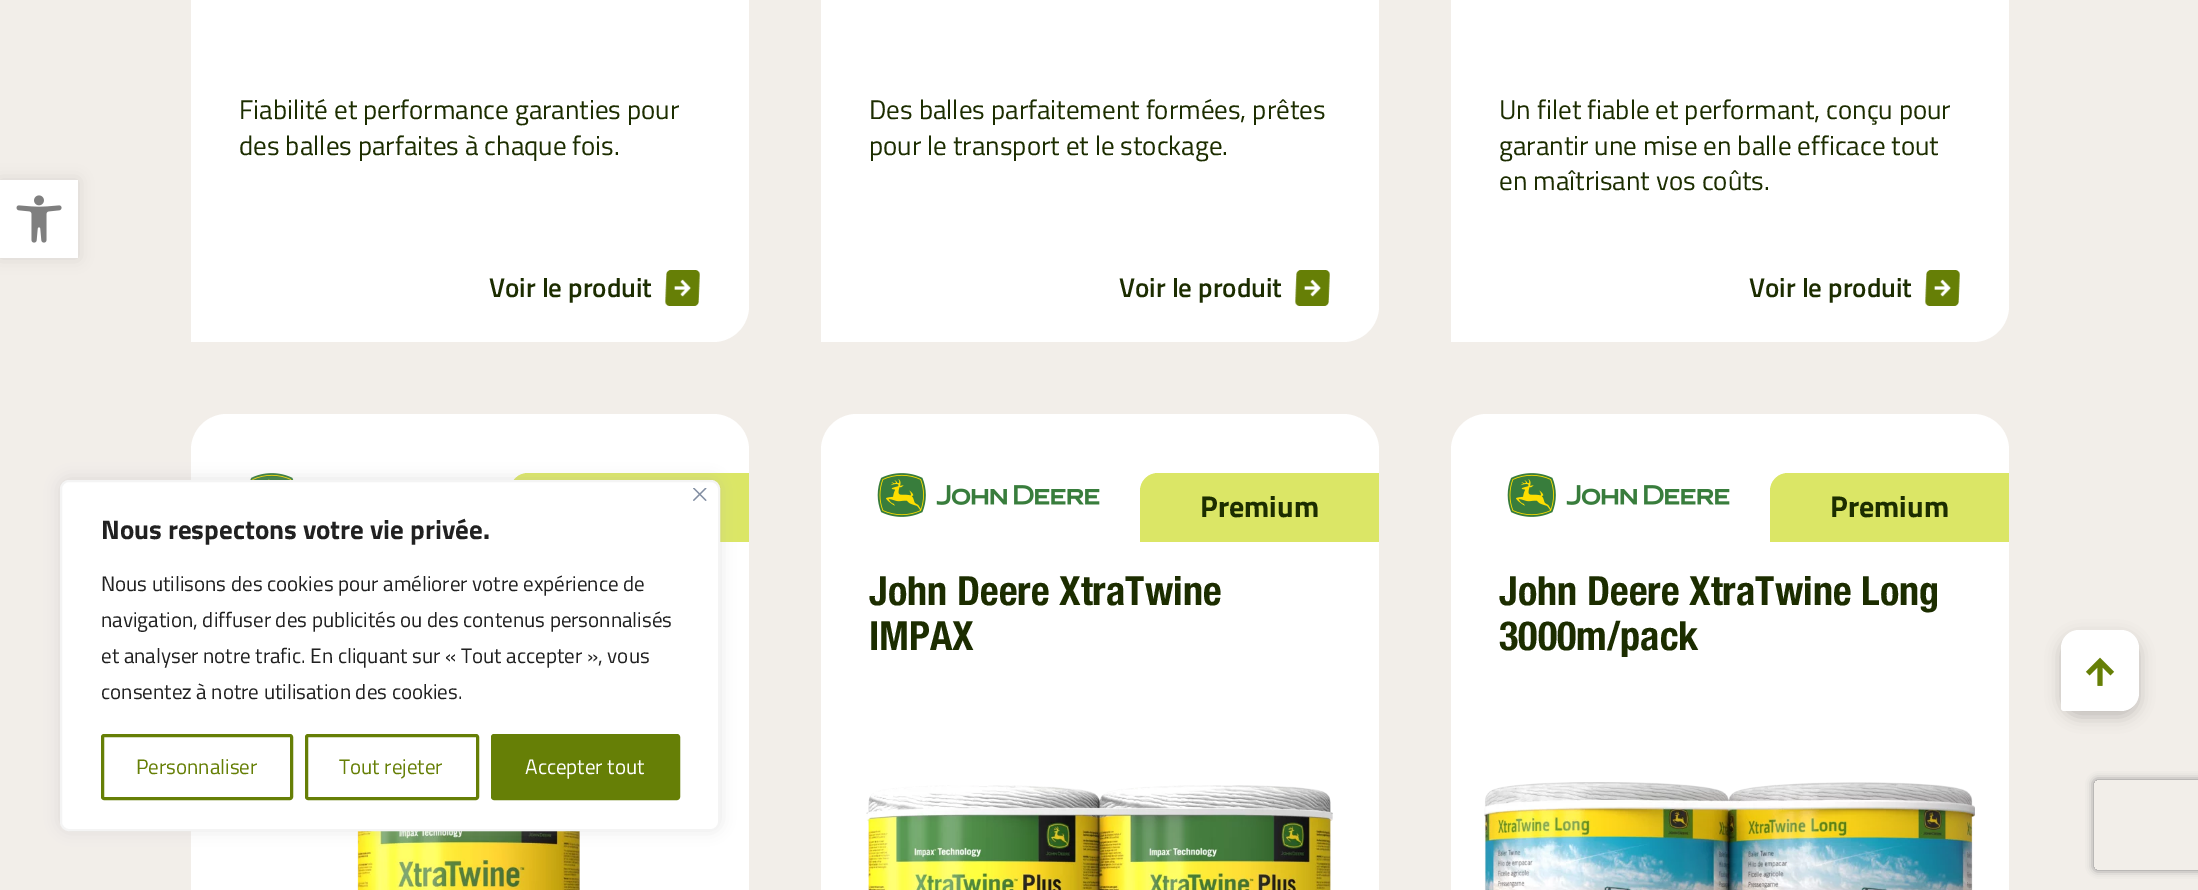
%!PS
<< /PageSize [2198 890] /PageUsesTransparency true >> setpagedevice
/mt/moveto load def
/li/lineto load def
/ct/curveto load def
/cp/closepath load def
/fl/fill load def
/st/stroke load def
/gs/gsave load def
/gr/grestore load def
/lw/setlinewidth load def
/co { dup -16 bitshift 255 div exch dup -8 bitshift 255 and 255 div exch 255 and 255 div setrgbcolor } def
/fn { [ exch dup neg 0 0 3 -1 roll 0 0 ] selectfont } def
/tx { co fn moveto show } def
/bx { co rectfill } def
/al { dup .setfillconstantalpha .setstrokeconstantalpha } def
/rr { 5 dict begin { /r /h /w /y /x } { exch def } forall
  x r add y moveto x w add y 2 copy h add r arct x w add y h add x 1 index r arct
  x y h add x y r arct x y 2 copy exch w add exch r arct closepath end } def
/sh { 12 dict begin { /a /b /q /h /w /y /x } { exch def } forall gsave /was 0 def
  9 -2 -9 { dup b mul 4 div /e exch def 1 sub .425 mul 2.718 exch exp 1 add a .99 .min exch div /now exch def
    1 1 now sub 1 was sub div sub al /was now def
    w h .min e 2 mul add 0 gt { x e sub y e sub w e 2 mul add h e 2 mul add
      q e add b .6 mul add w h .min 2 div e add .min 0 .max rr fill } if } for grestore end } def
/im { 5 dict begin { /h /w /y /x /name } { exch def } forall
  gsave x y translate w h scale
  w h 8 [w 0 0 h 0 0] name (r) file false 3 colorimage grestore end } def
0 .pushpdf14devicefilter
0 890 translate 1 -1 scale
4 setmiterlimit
0 0 2198 890 16#F2EEE9 bx
16#000000 co
0 180 78 78 0 7.5 .1 sh
0 180 78 78 16#FFFFFF bx
(media/1.raw) 16 195 46 48 im
227 -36 mt 713 -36 li 733 -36 749 -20 749 0 ct 749 306 li 749 326 733 342 713 342 ct 191 342 li 191 0 li 191 -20 207 -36 227 -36 ct cp fl
(media/2.raw) 665 270 35 36 im
857 -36 mt 1343 -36 li 1363 -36 1379 -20 1379 0 ct 1379 306 li 1379 326 1363 342 1343 342 ct 821 342 li 821 0 li 821 -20 837 -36 857 -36 ct cp fl
(media/3.raw) 1295 270 35 36 im
1487 -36 mt 1973 -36 li 1993 -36 2009 -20 2009 0 ct 2009 306 li 2009 326 1993 342 1973 342 ct 1451 342 li 1451 0 li 1451 -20 1467 -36 1487 -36 ct cp fl
(media/2.raw) 1925 270 35 36 im
227 414 mt 713 414 li 733 414 749 430 749 450 ct 749 890 li 749 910 733 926 713 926 ct 191 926 li 191 450 li 191 430 207 414 227 414 ct cp fl
(media/4.raw) 250 473 44 7 im
16#DBE666 co
528 473 mt 749 473 li 749 542 li 510 542 li 510 491 li 510 481 518 473 528 473 ct cp fl
(media/5.raw) 357 831 223 59 im
16#FFFFFF co
857 414 mt 1343 414 li 1363 414 1379 430 1379 450 ct 1379 890 li 1379 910 1363 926 1343 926 ct 821 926 li 821 450 li 821 430 837 414 857 414 ct cp fl
(media/6.raw) 877 473 223 44 im
16#DBE666 co
1158 473 mt 1379 473 li 1379 542 li 1140 542 li 1140 491 li 1140 481 1148 473 1158 473 ct cp fl
(media/7.raw) 866 785 467 105 im
16#FFFFFF co
1487 414 mt 1973 414 li 1993 414 2009 430 2009 450 ct 2009 890 li 2009 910 1993 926 1973 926 ct 1451 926 li 1451 450 li 1451 430 1467 414 1487 414 ct cp fl
(media/6.raw) 1507 473 223 44 im
16#DBE666 co
1788 473 mt 2009 473 li 2009 542 li 1770 542 li 1770 491 li 1770 481 1778 473 1788 473 ct cp fl
(media/8.raw) 1484 782 491 108 im
16#000000 co
2061 636 78 81 18 7.5 .2 sh
16#FFFFFF co
2079 630 mt 2121 630 li 2131 630 2139 638 2139 648 ct 2139 693 li 2139 703 2131 711 2121 711 ct 2064 711 li 2062.5 711 2061 709.5 2061 708 ct 2061 648 li 2061 638 2069 630 2079 630 ct cp fl
(media/9.raw) 2085 657 30 29 im
16#ACABAB co
60 479 660 351 9 7.5 .3 sh
16#FFFFFF co
61 481 658 349 8 rr gs fl gr
16#F4F4F4 co
2 lw
st
(media/10.raw) 693 488 14 13 im
16#667F06 co
3 lw
102.5 735.5 189 63 1.5 rr st
306.5 735.5 171 63 1.5 rr st
492.5 735.5 186 63 1.5 rr gs fl gr
st
gs
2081 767 mt 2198 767 li 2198 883 li 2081 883 li cp 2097 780 mt 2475 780 li 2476.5 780 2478 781.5 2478 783 ct 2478 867 li 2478 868.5 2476.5 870 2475 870 ct 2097 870 li 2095.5 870 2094 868.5 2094 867 ct 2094 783 li 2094 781.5 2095.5 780 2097 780 ct cp eoclip newpath
16#808080 co
2094 780 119 90 3 4 1 sh
gr
(Fiabilité et performance garanties pour) 239 119 /TitilliumWeb-Regular 27 16#1C2D00 tx
(des balles parfaites à chaque fois.) 239 155 /TitilliumWeb-Regular 27 16#1C2D00 tx
(Voir le produit) 489 297 /TitilliumWeb-SemiBold 27 16#1C2D00 tx
(Des balles parfaitement formées, prêtes) 869 119 /TitilliumWeb-Regular 27 16#1C2D00 tx
(pour le transport et le stockage.) 869 155 /TitilliumWeb-Regular 27 16#1C2D00 tx
(Voir le produit) 1119 297 /TitilliumWeb-SemiBold 27 16#1C2D00 tx
(Un filet fiable et performant, conçu pour) 1499 119 /TitilliumWeb-Regular 27 16#1C2D00 tx
(garantir une mise en balle efficace tout) 1499 155 /TitilliumWeb-Regular 27 16#1C2D00 tx
(en maîtrisant vos coûts.) 1499 190 /TitilliumWeb-Regular 27 16#1C2D00 tx
(Voir le produit) 1749 297 /TitilliumWeb-SemiBold 27 16#1C2D00 tx
(Premium) 1200 517 /TitilliumWeb-Bold 30 16#1C2D00 tx
(John Deere XtraTwine) 869 605 /HelveticaNeue-Bold 40.25 16#1C2D00 tx
(IMPAX) 869 650 /HelveticaNeue-Bold 40.25 16#1C2D00 tx
(Premium) 1830 517 /TitilliumWeb-Bold 30 16#1C2D00 tx
(John Deere XtraTwine Long) 1499 605 /HelveticaNeue-Bold 40.25 16#1C2D00 tx
(3000m/pack) 1499 650 /HelveticaNeue-Bold 40.25 16#1C2D00 tx
(Nous respectons votre vie privée.) 101 539 /TitilliumWeb-Bold 27 16#212121 tx
(Nous utilisons des cookies pour améliorer votre expérience de) 101 591 /TitilliumWeb-Regular 21 16#212121 tx
(navigation, diffuser des publicités ou des contenus personnalisés) 101 627 /TitilliumWeb-Regular 21 16#212121 tx
(et analyser notre trafic. En cliquant sur « Tout accepter », vous) 101 663 /TitilliumWeb-Regular 21 16#212121 tx
(consentez à notre utilisation des cookies.) 101 699 /TitilliumWeb-Regular 21 16#212121 tx
(Personnaliser) 136 774 /TitilliumWeb-Regular 21 16#667F06 tx
(Tout rejeter) 339 774 /TitilliumWeb-Regular 21 16#667F06 tx
(Accepter tout) 525 774 /TitilliumWeb-Regular 21 16#FFFFFF tx
.poppdf14devicefilter showpage
